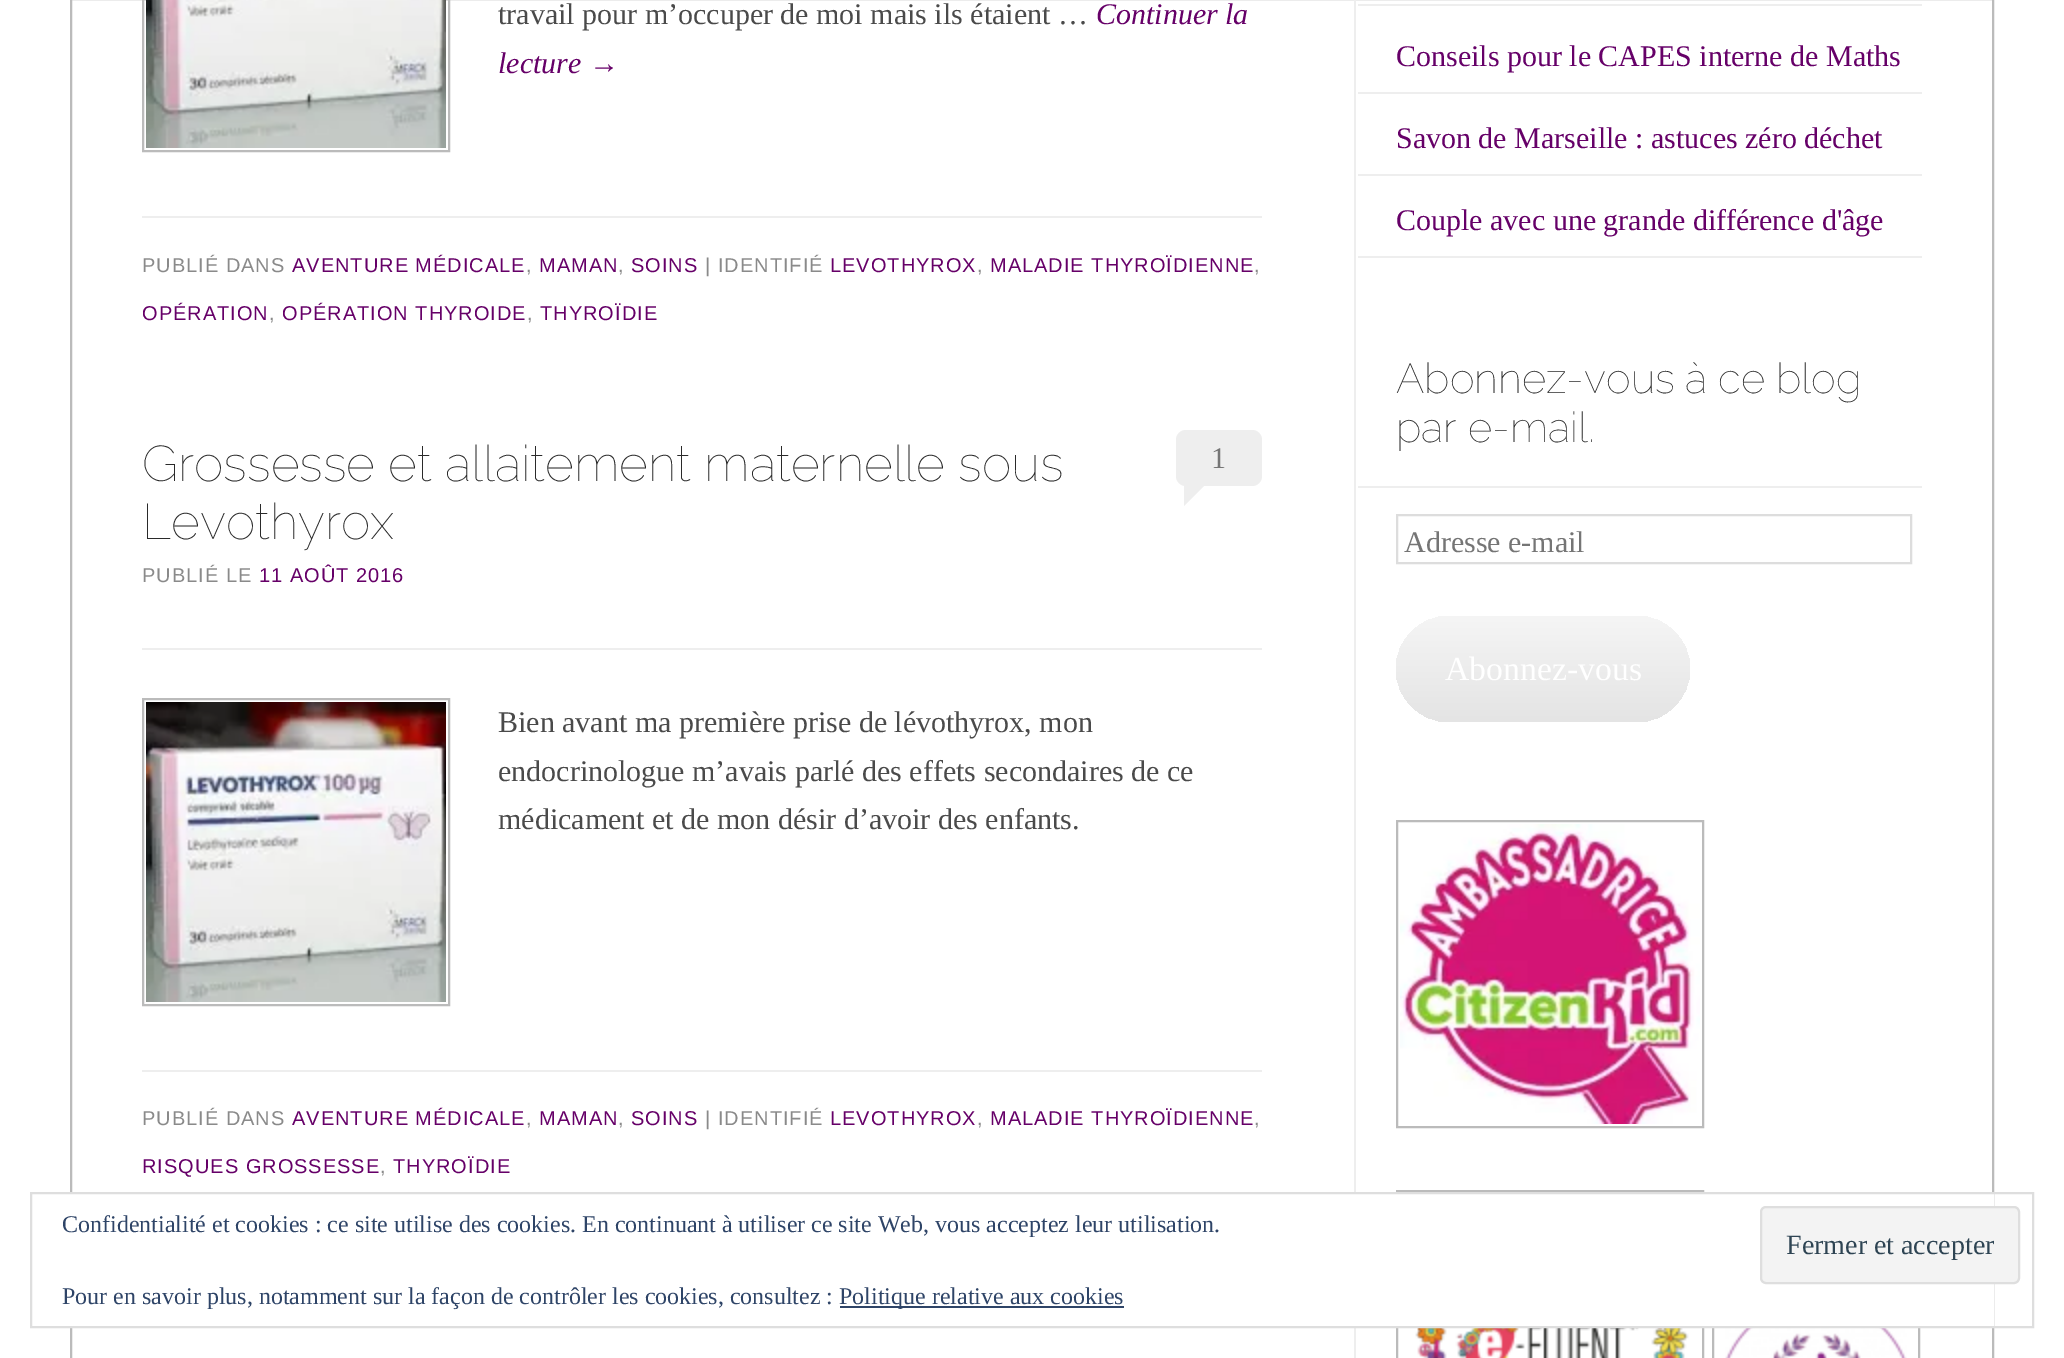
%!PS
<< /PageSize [2064 1358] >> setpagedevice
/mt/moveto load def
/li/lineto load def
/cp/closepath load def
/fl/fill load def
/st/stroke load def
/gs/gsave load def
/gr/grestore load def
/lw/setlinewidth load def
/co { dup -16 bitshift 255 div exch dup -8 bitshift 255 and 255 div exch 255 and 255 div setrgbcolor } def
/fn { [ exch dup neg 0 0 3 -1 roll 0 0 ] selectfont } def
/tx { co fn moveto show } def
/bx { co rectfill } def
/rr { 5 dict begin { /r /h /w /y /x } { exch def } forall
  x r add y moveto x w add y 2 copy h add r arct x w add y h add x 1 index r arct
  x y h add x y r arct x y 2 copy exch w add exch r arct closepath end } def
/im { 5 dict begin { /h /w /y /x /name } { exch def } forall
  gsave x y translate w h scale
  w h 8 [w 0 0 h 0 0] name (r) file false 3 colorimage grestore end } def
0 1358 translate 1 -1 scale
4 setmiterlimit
0 0 2064 1358 16#FFFFFF bx
16#BBBBBB co
2 lw
71 -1 1922 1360 rectstroke
143 -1 306 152 rectstroke
(media/1.raw) 146 0 300 148 im
142 216 1120 2 16#EEEEEE bx
1176 430 86 56 10 rr fl
1184 506 mt 1184 486 li 1204 486 li cp fl
142 648 1120 2 16#EEEEEE bx
16#BBBBBB co
143 699 306 306 rectstroke
(media/2.raw) 146 702 300 300 im
142 1070 1120 2 16#EEEEEE bx
1354 0 2 1358 16#EEEEEE bx
1358 4 564 2 16#EEEEEE bx
1358 92 564 2 16#EEEEEE bx
1358 174 564 2 16#EEEEEE bx
1358 256 564 2 16#EEEEEE bx
1358 486 564 2 16#EEEEEE bx
16#DDDDDD co
1397 515 514 48 rectstroke
gs 1396 616 294 106 53 rr clip newpath
<< /ShadingType 2 /ColorSpace /DeviceRGB /Coords [1543 616 1543 722] /Extend [true true] /Function << /FunctionType 2 /Domain [0 1] /C0 [.961 .961 .961] /C1 [.894 .894 .894] /N 1 >> >> shfill gr
16#BBBBBB co
1397 821 306 306 rectstroke
(media/3.raw) 1400 824 300 300 im
1397 1191 306 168 rectstroke
1713 1291 206 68 rectstroke
(media/4.raw) 1415 1328 274 30 im
(media/5.raw) 1725 1328 182 30 im
70 1194 1924 132 16#FFFFFF bx
16#DEDEDE co
31 1193 2002 134 rectstroke
16#F3F3F3 co
1761 1207 258 76 5 rr gs fl gr
16#DEDEDE co
st
840 1306 284 2 16#2E4467 bx
(travail pour m’occuper de moi mais ils étaient …) 498 24 /LiberationSerif-Regular 30 16#4A4A4A tx
(Continuer la) 1096 24 /LiberationSerif-Italic 30 16#660068 tx
(lecture →) 498 73 /LiberationSerif-Italic 30 16#660068 tx
/LiberationSans-Regular 20 fn
16#8A8A8A co
142 272 mt 1 0 (PUBLIÉ DANS) ashow
16#660068 co
292 272 mt 1 0 (AVENTURE MÉDICALE) ashow
16#8A8A8A co
526 272 mt 1 0 (,) ashow
16#660068 co
539 272 mt 1 0 (MAMAN) ashow
16#8A8A8A co
618 272 mt 1 0 (,) ashow
16#660068 co
631 272 mt 1 0 (SOINS) ashow
16#8A8A8A co
705 272 mt 1 0 (| IDENTIFIÉ) ashow
16#660068 co
830 272 mt 1 0 (LEVOTHYROX) ashow
16#8A8A8A co
977 272 mt 1 0 (,) ashow
16#660068 co
990 272 mt 1 0 (MALADIE THYROÏDIENNE) ashow
16#8A8A8A co
1254 272 mt 1 0 (,) ashow
16#660068 co
142 320 mt 1 0 (OPÉRATION) ashow
16#8A8A8A co
269 320 mt 1 0 (,) ashow
16#660068 co
282 320 mt 1 0 (OPÉRATION THYROIDE) ashow
16#8A8A8A co
527 320 mt 1 0 (,) ashow
16#660068 co
540 320 mt 1 0 (THYROÏDIE) ashow
(Grossesse et allaitement maternelle sous) 142 481 /Raleway-Thin 50 16#2A2A2A tx
(Levothyrox) 142 539 /Raleway-Thin 50 16#2A2A2A tx
(1) 1211 468 /LiberationSerif-Regular 30 16#757575 tx
/LiberationSans-Regular 20 fn
16#8A8A8A co
142 582 mt 1 0 (PUBLIÉ LE) ashow
16#660068 co
259 582 mt 1 0 (11 AOÛT 2016) ashow
(Bien avant ma première prise de lévothyrox, mon) 498 732 /LiberationSerif-Regular 30 16#4A4A4A tx
(endocrinologue m’avais parlé des effets secondaires de ce) 498 781 /LiberationSerif-Regular 30 16#4A4A4A tx
(médicament et de mon désir d’avoir des enfants.) 498 829 /LiberationSerif-Regular 30 16#4A4A4A tx
/LiberationSans-Regular 20 fn
16#8A8A8A co
142 1125 mt 1 0 (PUBLIÉ DANS) ashow
16#660068 co
292 1125 mt 1 0 (AVENTURE MÉDICALE) ashow
16#8A8A8A co
526 1125 mt 1 0 (,) ashow
16#660068 co
539 1125 mt 1 0 (MAMAN) ashow
16#8A8A8A co
618 1125 mt 1 0 (,) ashow
16#660068 co
631 1125 mt 1 0 (SOINS) ashow
16#8A8A8A co
705 1125 mt 1 0 (| IDENTIFIÉ) ashow
16#660068 co
830 1125 mt 1 0 (LEVOTHYROX) ashow
16#8A8A8A co
977 1125 mt 1 0 (,) ashow
16#660068 co
990 1125 mt 1 0 (MALADIE THYROÏDIENNE) ashow
16#8A8A8A co
1254 1125 mt 1 0 (,) ashow
16#660068 co
142 1173 mt 1 0 (RISQUES GROSSESSE) ashow
16#8A8A8A co
380 1173 mt 1 0 (,) ashow
16#660068 co
393 1173 mt 1 0 (THYROÏDIE) ashow
(Conseils pour le CAPES interne de Maths) 1396 66 /LiberationSerif-Regular 30 16#660068 tx
(Savon de Marseille : astuces zéro déchet) 1396 148 /LiberationSerif-Regular 30 16#660068 tx
(Couple avec une grande différence d'âge) 1396 230 /LiberationSerif-Regular 30 16#660068 tx
(Abonnez-vous à ce blog) 1396 393 /Raleway-Thin 42 16#2A2A2A tx
(par e-mail.) 1396 442 /Raleway-Thin 42 16#2A2A2A tx
(Adresse e-mail) 1404 552 /LiberationSerif-Regular 30 16#757575 tx
(Abonnez-vous) 1445 680 /LiberationSerif-Regular 33.75 16#FFFFFF tx
(Confidentialité et cookies : ce site utilise des cookies. En continuant à utiliser ce site Web, vous acceptez leur utilisation.) 62 1232 /LiberationSerif-Regular 24 16#2E4467 tx
(Fermer et accepter) 1786 1254 /LiberationSerif-Regular 28 16#2E4453 tx
(Pour en savoir plus, notamment sur la façon de contrôler les cookies, consultez :) 62 1304 /LiberationSerif-Regular 24 16#2E4467 tx
(Politique relative aux cookies) 839 1304 /LiberationSerif-Regular 24 16#2E4467 tx
showpage
